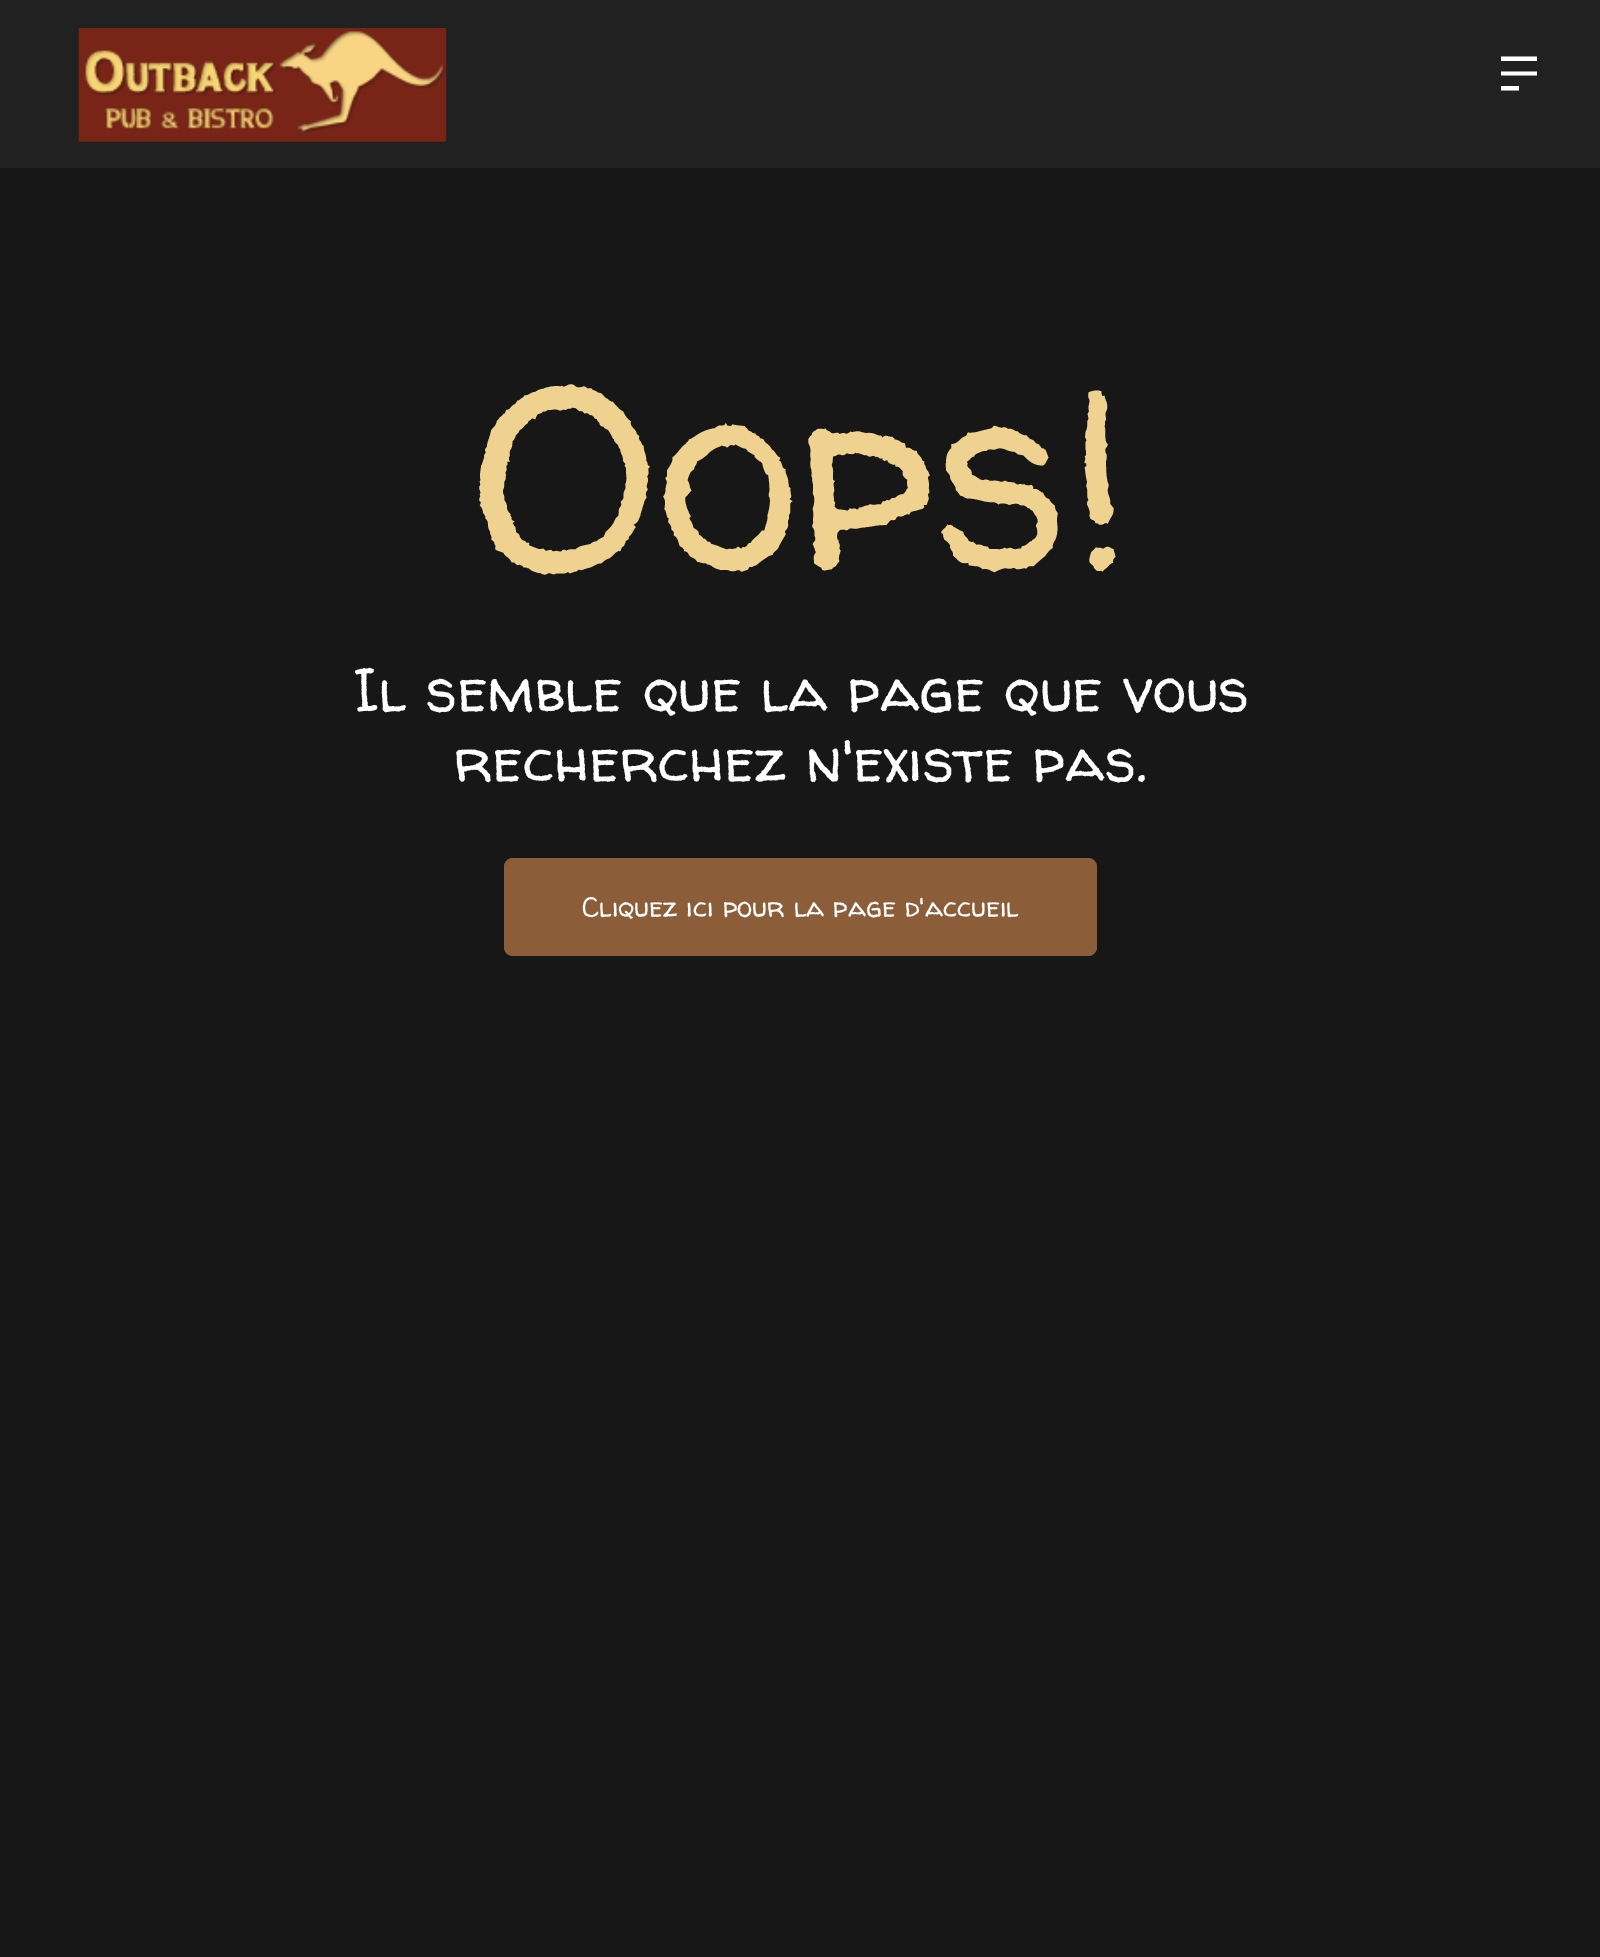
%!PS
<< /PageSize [1600 1957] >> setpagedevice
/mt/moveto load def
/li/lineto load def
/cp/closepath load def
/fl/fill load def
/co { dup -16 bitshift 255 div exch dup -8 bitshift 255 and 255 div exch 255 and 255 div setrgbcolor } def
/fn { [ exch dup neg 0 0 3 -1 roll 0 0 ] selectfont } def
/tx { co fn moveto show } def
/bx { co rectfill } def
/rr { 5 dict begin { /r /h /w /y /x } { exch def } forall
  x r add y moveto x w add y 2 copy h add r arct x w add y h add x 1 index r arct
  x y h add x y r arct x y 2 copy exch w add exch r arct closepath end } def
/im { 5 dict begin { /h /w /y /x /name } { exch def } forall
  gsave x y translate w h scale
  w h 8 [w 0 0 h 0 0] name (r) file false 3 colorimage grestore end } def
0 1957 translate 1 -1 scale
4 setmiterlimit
0 0 1600 1957 16#171717 bx
0 0 1600 168 16#212121 bx
(media/1.raw) 78 28 369 114 im
16#FFFFFF co
1501 90.5 mt 1501 86 li 1519 86 li 1519 90.5 li cp 1501 75.5 mt 1501 71.5 li 1537 71.5 li 1537 75.5 li cp 1501 61 mt 1501 56.5 li 1537 56.5 li 1537 61 li cp fl
16#8C5D39 co
504 858 593 98 9 rr fl
(Oops!) 470 569 /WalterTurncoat-Regular 262.5 16#F0D290 tx
(Il semble que la page que vous) 353 712 /WalterTurncoat-Regular 61.25 16#FFFFFF tx
(recherchez n'existe pas.) 454 782 /WalterTurncoat-Regular 61.25 16#FFFFFF tx
(Cliquez ici pour la page d'accueil) 582 917 /WalterTurncoat-Regular 28 16#FFFFFF tx
showpage
